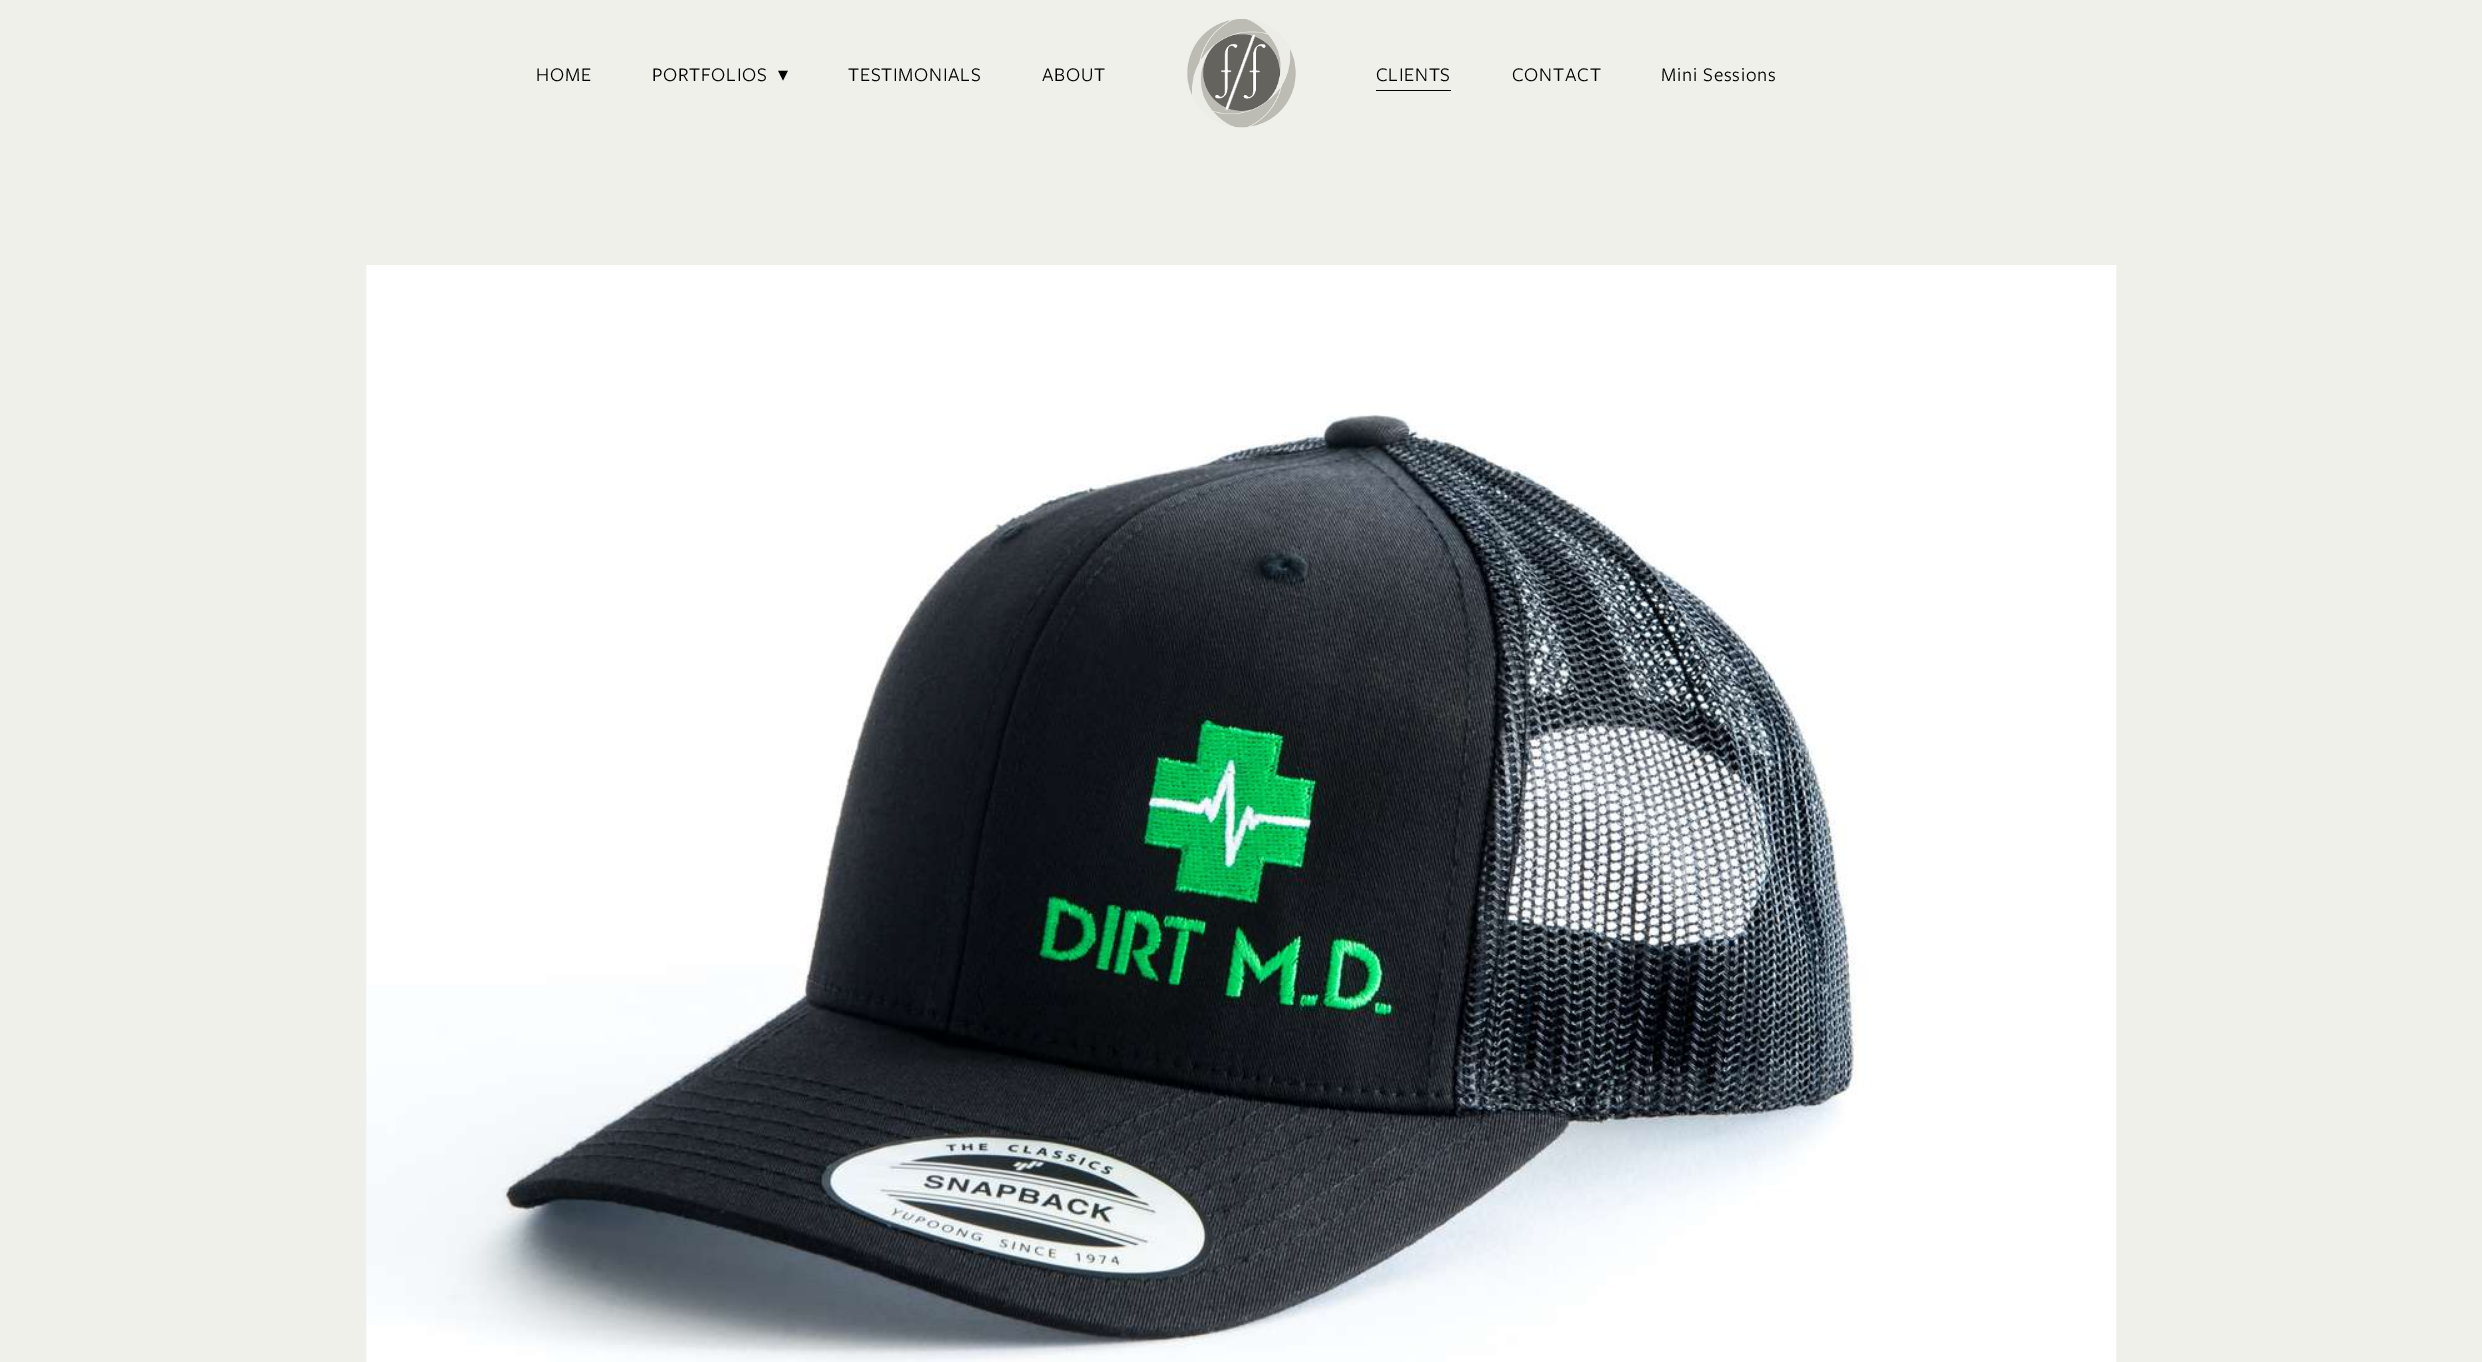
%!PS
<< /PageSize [2482 1362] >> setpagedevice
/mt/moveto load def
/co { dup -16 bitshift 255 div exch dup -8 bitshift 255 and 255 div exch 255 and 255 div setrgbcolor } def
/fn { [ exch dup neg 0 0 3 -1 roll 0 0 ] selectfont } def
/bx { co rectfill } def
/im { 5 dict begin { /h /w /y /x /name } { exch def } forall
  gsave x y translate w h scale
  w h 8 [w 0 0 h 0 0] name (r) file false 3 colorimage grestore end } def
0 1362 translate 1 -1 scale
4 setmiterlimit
0 0 2482 1362 16#EFF0EA bx
(media/1.raw) 1187 19 109 109 im
1376 90 75 1 16#000000 bx
(media/2.raw) 366 265 1751 1097 im
/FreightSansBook-Regular 20 fn
536 81 mt .75 0 (HOME) ashow
652 81 mt .75 0 (PORTFOLIOS) ashow
/DejaVuSans-Regular 20 fn
778 81 mt .75 0 (▾) ashow
/FreightSansBook-Regular 20 fn
848 81 mt .75 0 (TESTIMONIALS) ashow
1042 81 mt .75 0 (ABOUT) ashow
1376 81 mt .75 0 (CLIENTS) ashow
1512 81 mt .75 0 (CONTACT) ashow
1661 81 mt .75 0 (Mini Sessions) ashow
showpage
